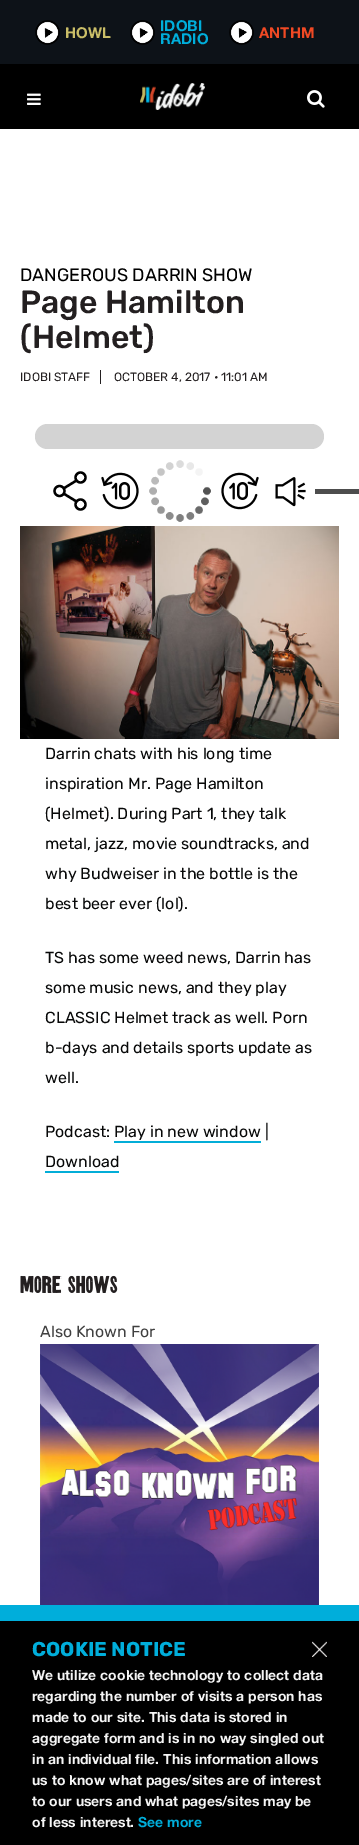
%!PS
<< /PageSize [359 1845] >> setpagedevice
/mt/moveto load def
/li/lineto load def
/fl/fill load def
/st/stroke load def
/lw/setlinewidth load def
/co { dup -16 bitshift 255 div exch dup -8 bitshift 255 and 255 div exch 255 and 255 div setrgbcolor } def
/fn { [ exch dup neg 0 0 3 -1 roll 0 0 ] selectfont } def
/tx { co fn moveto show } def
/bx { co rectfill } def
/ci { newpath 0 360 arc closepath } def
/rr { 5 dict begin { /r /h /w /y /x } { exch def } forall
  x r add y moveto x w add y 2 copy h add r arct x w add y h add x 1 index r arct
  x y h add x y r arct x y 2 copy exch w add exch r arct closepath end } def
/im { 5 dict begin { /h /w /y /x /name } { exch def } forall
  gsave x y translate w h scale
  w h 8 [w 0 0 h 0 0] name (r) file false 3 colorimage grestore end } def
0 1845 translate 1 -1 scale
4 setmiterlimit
0 0 359 1845 16#FFFFFF bx
0 64 359 65 16#000000 bx
0 0 359 64 16#0D1218 bx
(media/1.raw) 35 20 25 25 im
(media/2.raw) 130 20 25 25 im
(media/2.raw) 229 20 25 25 im
(media/3.raw) 27 93 14 12 im
(media/4.raw) 140 83 65 27 im
(media/5.raw) 307 90 18 18 im
100 370 1 14 16#231F20 bx
16#D3D3D3 co
35 424 289 25 12.5 rr fl
16#000000 co
2.3 lw
80.5 477.5 5 ci st
59.5 491 5 ci st
80.5 504.5 5 ci st
63.5 488.5 mt 76.5 480.5 li 63.5 493.5 mt 76.5 501.5 li st
(media/6.raw) 101 472 38 38 im
(media/7.raw) 149 460 62 62 im
(media/8.raw) 221 472 38 38 im
(media/9.raw) 275 477 31 30 im
315 489 44 5 16#4D4D4D bx
(media/10.raw) 20 526 319 213 im
114 1141 147 2 16#03ADD7 bx
45 1171 74 2 16#03ADD7 bx
(media/11.raw) 20 1275 98 18 im
(media/12.raw) 40 1344 279 261 im
0 1621 359 224 16#000000 bx
0 1605 359 16 16#00AEDB bx
(media/13.raw) 312 1641 15 16 im
(HOWL) 65 38 /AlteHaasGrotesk-Bold 15 16#CABE68 tx
(IDOBI) 160 31 /AlteHaasGrotesk-Bold 15 16#00AEDB tx
(RADIO) 160 44 /AlteHaasGrotesk-Bold 15 16#00AEDB tx
(ANTHM) 259 38 /AlteHaasGrotesk-Bold 15 16#F04924 tx
(DANGEROUS DARRIN SHOW) 20 281 /Rubik-Regular 18 16#000000 tx
(Page Hamilton) 20 313 /Rubik-Medium 32 16#231F20 tx
(\(Helmet\)) 20 348 /Rubik-Medium 32 16#231F20 tx
(IDOBI STAFF) 20 381 /Rubik-Regular 12 16#231F20 tx
(OCTOBER 4, 2017 • 11:01 AM) 114 381 /Rubik-Regular 12 16#231F20 tx
(Darrin chats with his long time) 45 759 /Rubik-Regular 16 16#070808 tx
(inspiration Mr. Page Hamilton) 45 789 /Rubik-Regular 16 16#070808 tx
(\(Helmet\). During Part 1, they talk) 45 819 /Rubik-Regular 16 16#070808 tx
(metal, jazz, movie soundtracks, and) 45 849 /Rubik-Regular 16 16#070808 tx
(why Budweiser in the bottle is the) 45 879 /Rubik-Regular 16 16#070808 tx
(best beer ever \(lol\).) 45 909 /Rubik-Regular 16 16#070808 tx
(TS has some weed news, Darrin has) 45 963 /Rubik-Regular 16 16#070808 tx
(some music news, and they play) 45 993 /Rubik-Regular 16 16#070808 tx
(CLASSIC Helmet track as well. Porn) 45 1023 /Rubik-Regular 16 16#070808 tx
(b-days and details sports update as) 45 1053 /Rubik-Regular 16 16#070808 tx
(well.) 45 1083 /Rubik-Regular 16 16#070808 tx
(Podcast: Play in new window |) 45 1137 /Rubik-Regular 16 16#070808 tx
(Download) 45 1167 /Rubik-Regular 16 16#070808 tx
(Also Known For) 40 1337 /Rubik-Regular 16 16#404040 tx
(COOKIE NOTICE) 32 1656 /Rubik-Bold 20 16#00AEDB tx
(We utilize cookie technology to collect data) 32 1680 /AlteHaasGrotesk-Bold 14 16#F5F5F5 tx
(regarding the number of visits a person has) 32 1701 /AlteHaasGrotesk-Bold 14 16#F5F5F5 tx
(made to our site. This data is stored in) 32 1722 /AlteHaasGrotesk-Bold 14 16#F5F5F5 tx
(aggregate form and is in no way singled out) 32 1743 /AlteHaasGrotesk-Bold 14 16#F5F5F5 tx
(in an individual file. This information allows) 32 1764 /AlteHaasGrotesk-Bold 14 16#F5F5F5 tx
(us to know what pages/sites are of interest) 32 1785 /AlteHaasGrotesk-Bold 14 16#F5F5F5 tx
(to our users and what pages/sites may be) 32 1806 /AlteHaasGrotesk-Bold 14 16#F5F5F5 tx
(of less interest.) 32 1827 /AlteHaasGrotesk-Bold 14 16#F5F5F5 tx
(See more) 138 1827 /AlteHaasGrotesk-Bold 14 16#00AEDB tx
showpage
